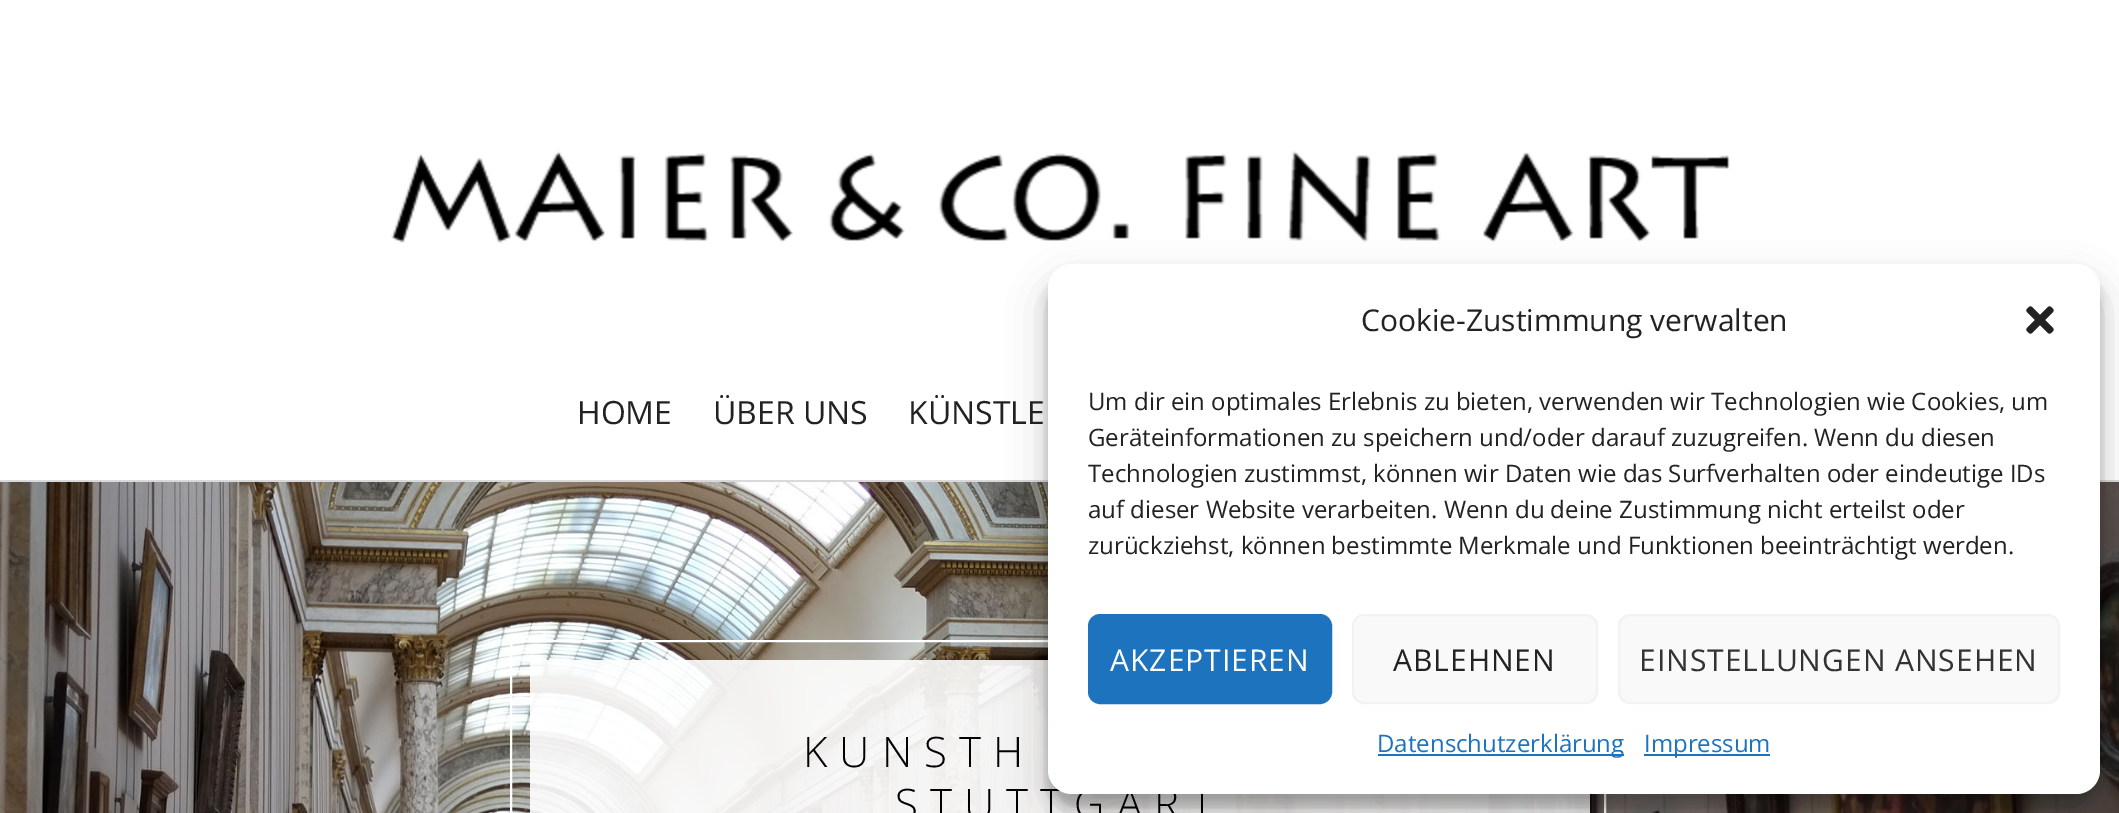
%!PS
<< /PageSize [2119 813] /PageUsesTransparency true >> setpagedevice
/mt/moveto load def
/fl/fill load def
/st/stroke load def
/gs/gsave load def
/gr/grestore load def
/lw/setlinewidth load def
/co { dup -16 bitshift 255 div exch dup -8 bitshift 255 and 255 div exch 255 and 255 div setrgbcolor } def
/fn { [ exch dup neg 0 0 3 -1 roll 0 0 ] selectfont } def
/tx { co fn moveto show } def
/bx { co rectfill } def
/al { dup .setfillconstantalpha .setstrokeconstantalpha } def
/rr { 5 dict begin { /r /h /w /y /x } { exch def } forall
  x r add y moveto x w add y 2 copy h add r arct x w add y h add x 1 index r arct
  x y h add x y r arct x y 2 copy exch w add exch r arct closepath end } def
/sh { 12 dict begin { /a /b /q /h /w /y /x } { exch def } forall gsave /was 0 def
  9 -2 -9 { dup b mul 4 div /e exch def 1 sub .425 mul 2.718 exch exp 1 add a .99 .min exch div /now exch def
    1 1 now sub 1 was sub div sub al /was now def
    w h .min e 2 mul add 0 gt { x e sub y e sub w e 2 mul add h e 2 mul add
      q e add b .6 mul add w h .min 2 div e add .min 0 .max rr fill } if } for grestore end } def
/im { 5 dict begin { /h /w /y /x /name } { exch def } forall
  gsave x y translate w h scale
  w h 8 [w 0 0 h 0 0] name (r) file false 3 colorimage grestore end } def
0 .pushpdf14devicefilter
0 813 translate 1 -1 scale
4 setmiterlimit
0 0 2119 813 16#FFFFFF bx
0 480 2119 2 16#D9D9D9 bx
(media/1.raw) 391 151 1339 92 im
(media/2.raw) 0 482 2119 331 im
0.9 al
530 660 1060 153 16#FFFFFF bx
1 al
2 lw
511 641 1094 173 rectstroke
16#000000 co
1048 276 1052 530 24 6 .23 sh
1048 284 1052 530 24 20 .19 sh
(HOME) 577 424 /OpenSans-Regular 32 16#222222 tx
(ÜBER UNS) 713 424 /OpenSans-Regular 32 16#222222 tx
(KÜNSTLE) 908 424 /OpenSans-Regular 32 16#222222 tx
/OpenSans-Light 42 fn
16#000000 co
803 767 mt 12 0 (KUNSTH) ashow
895 819 mt 12 0 (STUTTGART) ashow
16#FFFFFF co
1048 264 1052 530 24 rr fl
(Cookie-Zustimmung verwalten) 1361 331 /OpenSans-Regular 30 16#222222 tx
(media/3.raw) 2026 306 28 28 im
(Um dir ein optimales Erlebnis zu bieten, verwenden wir Technologien wie Cookies, um) 1088 410 /OpenSans-Regular 24 16#222222 tx
(Geräteinformationen zu speichern und/oder darauf zuzugreifen. Wenn du diesen) 1088 446 /OpenSans-Regular 24 16#222222 tx
(Technologien zustimmst, können wir Daten wie das Surfverhalten oder eindeutige IDs) 1088 482 /OpenSans-Regular 24 16#222222 tx
(auf dieser Website verarbeiten. Wenn du deine Zustimmung nicht erteilst oder) 1088 518 /OpenSans-Regular 24 16#222222 tx
(zurückziehst, können bestimmte Merkmale und Funktionen beeinträchtigt werden.) 1088 554 /OpenSans-Regular 24 16#222222 tx
16#1E73BE co
1089 615 242 88 11 rr gs fl gr
st
/OpenSans-Regular 30 fn
16#FFFFFF co
1110 671 mt 1 0 (AKZEPTIEREN) ashow
16#F9F9F9 co
1353 615 244 88 11 rr gs fl gr
16#F2F2F2 co
st
16#222222 co
1393 671 mt 1 0 (ABLEHNEN) ashow
16#F9F9F9 co
1619 615 440 88 11 rr gs fl gr
16#F2F2F2 co
st
16#333333 co
1639 671 mt 1 0 (EINSTELLUNGEN ANSEHEN) ashow
1378 754 246 2 16#1E73BE bx
(Datenschutzerklärung) 1377 752 /OpenSans-Regular 24 16#1E73BE tx
1644 754 126 2 16#1E73BE bx
(Impressum) 1644 752 /OpenSans-Regular 24 16#1E73BE tx
.poppdf14devicefilter showpage
